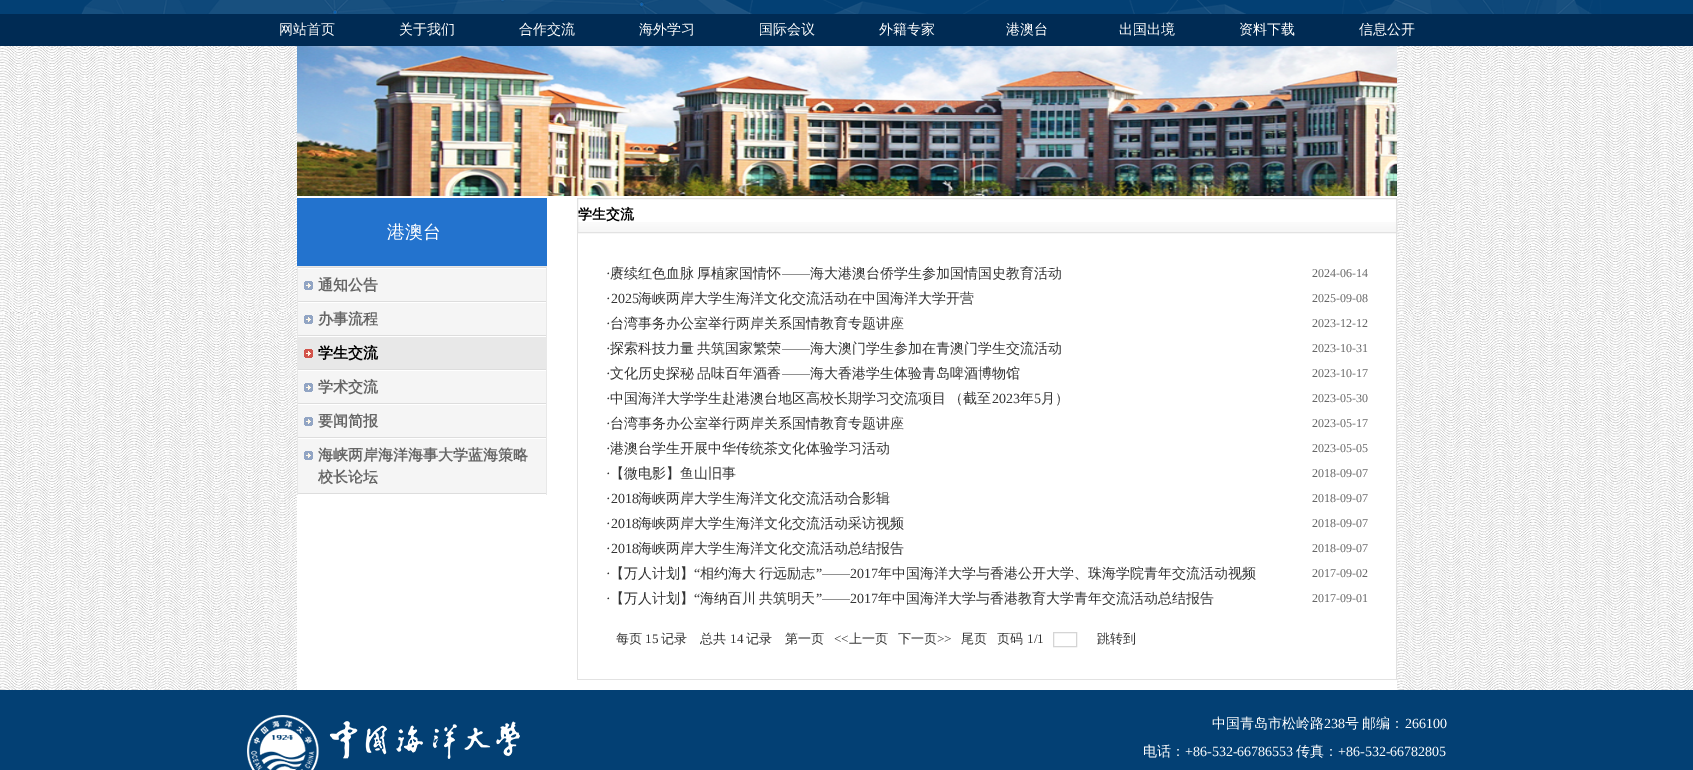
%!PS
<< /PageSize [1693 770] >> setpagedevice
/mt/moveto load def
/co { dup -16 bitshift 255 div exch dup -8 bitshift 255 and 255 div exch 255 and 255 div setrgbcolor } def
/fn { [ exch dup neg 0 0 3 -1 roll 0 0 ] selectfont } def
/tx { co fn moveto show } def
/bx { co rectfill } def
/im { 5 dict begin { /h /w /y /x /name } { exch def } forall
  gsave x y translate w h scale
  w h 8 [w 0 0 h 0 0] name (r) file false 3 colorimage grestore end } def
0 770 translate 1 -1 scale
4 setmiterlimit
0 0 1693 770 16#FFFFFF bx
(media/1.raw) 0 46 1693 644 im
(media/2.raw) 0 0 1693 14 im
0 14 1693 32 16#002B54 bx
297 196 1100 494 16#FFFFFF bx
(media/3.raw) 297 46 1100 150 im
297 198 250 68 16#2373CE bx
297 266 250 1 16#E8E8E8 bx
546 266 1 229 16#E8E8E8 bx
297 266 1 229 16#E8E8E8 bx
298 267 248 1 16#DDDDDD bx
298 269 248 32 16#F5F5F5 bx
(media/4.raw) 304 281 9 9 im
298 301 248 1 16#DDDDDD bx
298 303 248 32 16#F5F5F5 bx
(media/4.raw) 304 315 9 9 im
298 335 248 1 16#DDDDDD bx
298 337 248 32 16#E8E8E8 bx
(media/5.raw) 304 349 9 9 im
298 369 248 1 16#DDDDDD bx
298 371 248 32 16#F5F5F5 bx
(media/4.raw) 304 383 9 9 im
298 403 248 1 16#DDDDDD bx
298 405 248 32 16#F5F5F5 bx
(media/4.raw) 304 417 9 9 im
298 437 248 1 16#DDDDDD bx
298 439 248 54 16#F5F5F5 bx
(media/4.raw) 304 451 9 9 im
298 493 248 1 16#DDDDDD bx
(media/6.raw) 578 222 818 10 im
16#E2E2E2 co
577.5 198.5 819 34 rectstroke
1396 233 1 447 16#E2E2E2 bx
577 679 820 1 16#E2E2E2 bx
577 233 1 447 16#E2E2E2 bx
16#D5D5D5 co
1053.5 632.5 23 14 rectstroke
0 690 1693 80 16#034074 bx
(media/7.raw) 247 715 273 55 im
(网站首页) 279 34 /WenQuanYiZenHei-Medium 14 16#FFFFFF tx
(关于我们) 399 34 /WenQuanYiZenHei-Medium 14 16#FFFFFF tx
(合作交流) 519 34 /WenQuanYiZenHei-Medium 14 16#FFFFFF tx
(海外学习) 639 34 /WenQuanYiZenHei-Medium 14 16#FFFFFF tx
(国际会议) 759 34 /WenQuanYiZenHei-Medium 14 16#FFFFFF tx
(外籍专家) 879 34 /WenQuanYiZenHei-Medium 14 16#FFFFFF tx
(港澳台) 1006 34 /WenQuanYiZenHei-Medium 14 16#FFFFFF tx
(出国出境) 1119 34 /WenQuanYiZenHei-Medium 14 16#FFFFFF tx
(资料下载) 1239 34 /WenQuanYiZenHei-Medium 14 16#FFFFFF tx
(信息公开) 1359 34 /WenQuanYiZenHei-Medium 14 16#FFFFFF tx
(港澳台) 387 238 /WenQuanYiZenHei-Medium 18 16#FFFFFF tx
(通知公告) 318 290 /WenQuanYiZenHei-Bold 15 16#666666 tx
(办事流程) 318 324 /WenQuanYiZenHei-Bold 15 16#666666 tx
(学生交流) 318 358 /WenQuanYiZenHei-Bold 15 16#000000 tx
(学术交流) 318 392 /WenQuanYiZenHei-Bold 15 16#666666 tx
(要闻简报) 318 426 /WenQuanYiZenHei-Bold 15 16#666666 tx
(海峡两岸海洋海事大学蓝海策略) 318 460 /WenQuanYiZenHei-Bold 15 16#666666 tx
(校长论坛) 318 482 /WenQuanYiZenHei-Bold 15 16#666666 tx
(学生交流) 578 219 /WenQuanYiZenHei-Bold 14 16#000000 tx
(·) 606 278 /LiberationSerif-Regular 14 16#333333 tx
/WenQuanYiZenHei-Medium 14 fn
610 278 mt -1 0 32 (赓续红色血脉 厚植家国情怀) widthshow
(——) 782 278 /LiberationSerif-Regular 14 16#333333 tx
(海大港澳台侨学生参加国情国史教育活动) 810 278 /WenQuanYiZenHei-Medium 14 16#333333 tx
(2024-06-14) 1312 277 /LiberationSerif-Regular 12 16#666666 tx
(·2025) 606 303 /LiberationSerif-Regular 14 16#333333 tx
(海峡两岸大学生海洋文化交流活动在中国海洋大学开营) 638 303 /WenQuanYiZenHei-Medium 14 16#333333 tx
(2025-09-08) 1312 302 /LiberationSerif-Regular 12 16#666666 tx
(·) 606 328 /LiberationSerif-Regular 14 16#333333 tx
(台湾事务办公室举行两岸关系国情教育专题讲座) 610 328 /WenQuanYiZenHei-Medium 14 16#333333 tx
(2023-12-12) 1312 327 /LiberationSerif-Regular 12 16#666666 tx
(·) 606 353 /LiberationSerif-Regular 14 16#333333 tx
/WenQuanYiZenHei-Medium 14 fn
610 353 mt -1 0 32 (探索科技力量 共筑国家繁荣) widthshow
(——) 782 353 /LiberationSerif-Regular 14 16#333333 tx
(海大澳门学生参加在青澳门学生交流活动) 810 353 /WenQuanYiZenHei-Medium 14 16#333333 tx
(2023-10-31) 1312 352 /LiberationSerif-Regular 12 16#666666 tx
(·) 606 378 /LiberationSerif-Regular 14 16#333333 tx
/WenQuanYiZenHei-Medium 14 fn
610 378 mt -1 0 32 (文化历史探秘 品味百年酒香) widthshow
(——) 782 378 /LiberationSerif-Regular 14 16#333333 tx
(海大香港学生体验青岛啤酒博物馆) 810 378 /WenQuanYiZenHei-Medium 14 16#333333 tx
(2023-10-17) 1312 377 /LiberationSerif-Regular 12 16#666666 tx
(·) 606 403 /LiberationSerif-Regular 14 16#333333 tx
/WenQuanYiZenHei-Medium 14 fn
610 403 mt -1 0 32 (中国海洋大学学生赴港澳台地区高校长期学习交流项目 （截至) widthshow
(2023) 992 403 /LiberationSerif-Regular 14 16#333333 tx
(年) 1020 403 /WenQuanYiZenHei-Medium 14 16#333333 tx
(5) 1034 403 /LiberationSerif-Regular 14 16#333333 tx
(月）) 1041 403 /WenQuanYiZenHei-Medium 14 16#333333 tx
(2023-05-30) 1312 402 /LiberationSerif-Regular 12 16#666666 tx
(·) 606 428 /LiberationSerif-Regular 14 16#333333 tx
(台湾事务办公室举行两岸关系国情教育专题讲座) 610 428 /WenQuanYiZenHei-Medium 14 16#333333 tx
(2023-05-17) 1312 427 /LiberationSerif-Regular 12 16#666666 tx
(·) 606 453 /LiberationSerif-Regular 14 16#333333 tx
(港澳台学生开展中华传统茶文化体验学习活动) 610 453 /WenQuanYiZenHei-Medium 14 16#333333 tx
(2023-05-05) 1312 452 /LiberationSerif-Regular 12 16#666666 tx
(·) 606 478 /LiberationSerif-Regular 14 16#333333 tx
(【微电影】鱼山旧事) 610 478 /WenQuanYiZenHei-Medium 14 16#333333 tx
(2018-09-07) 1312 477 /LiberationSerif-Regular 12 16#666666 tx
(·2018) 606 503 /LiberationSerif-Regular 14 16#333333 tx
(海峡两岸大学生海洋文化交流活动合影辑) 638 503 /WenQuanYiZenHei-Medium 14 16#333333 tx
(2018-09-07) 1312 502 /LiberationSerif-Regular 12 16#666666 tx
(·2018) 606 528 /LiberationSerif-Regular 14 16#333333 tx
(海峡两岸大学生海洋文化交流活动采访视频) 638 528 /WenQuanYiZenHei-Medium 14 16#333333 tx
(2018-09-07) 1312 527 /LiberationSerif-Regular 12 16#666666 tx
(·2018) 606 553 /LiberationSerif-Regular 14 16#333333 tx
(海峡两岸大学生海洋文化交流活动总结报告) 638 553 /WenQuanYiZenHei-Medium 14 16#333333 tx
(2018-09-07) 1312 552 /LiberationSerif-Regular 12 16#666666 tx
(·) 606 578 /LiberationSerif-Regular 14 16#333333 tx
(【万人计划】) 610 578 /WenQuanYiZenHei-Medium 14 16#333333 tx
(“) 694 578 /LiberationSerif-Regular 14 16#333333 tx
/WenQuanYiZenHei-Medium 14 fn
700 578 mt -1 0 32 (相约海大 行远励志) widthshow
(”——2017) 816 578 /LiberationSerif-Regular 14 16#333333 tx
(年中国海洋大学与香港公开大学、珠海学院青年交流活动视频) 878 578 /WenQuanYiZenHei-Medium 14 16#333333 tx
(2017-09-02) 1312 577 /LiberationSerif-Regular 12 16#666666 tx
(·) 606 603 /LiberationSerif-Regular 14 16#333333 tx
(【万人计划】) 610 603 /WenQuanYiZenHei-Medium 14 16#333333 tx
(“) 694 603 /LiberationSerif-Regular 14 16#333333 tx
/WenQuanYiZenHei-Medium 14 fn
700 603 mt -1 0 32 (海纳百川 共筑明天) widthshow
(”——2017) 816 603 /LiberationSerif-Regular 14 16#333333 tx
(年中国海洋大学与香港教育大学青年交流活动总结报告) 878 603 /WenQuanYiZenHei-Medium 14 16#333333 tx
(2017-09-01) 1312 602 /LiberationSerif-Regular 12 16#666666 tx
(每页) 616 643 /WenQuanYiZenHei-Medium 13 16#333333 tx
(15) 645 643 /LiberationSerif-Regular 13 16#333333 tx
(记录) 661 643 /WenQuanYiZenHei-Medium 13 16#333333 tx
(总共) 700 643 /WenQuanYiZenHei-Medium 13 16#333333 tx
(14) 730 643 /LiberationSerif-Regular 13 16#333333 tx
(记录) 746 643 /WenQuanYiZenHei-Medium 13 16#333333 tx
(第一页) 785 643 /WenQuanYiZenHei-Medium 13 16#333333 tx
(<<) 834 643 /LiberationSerif-Regular 13 16#333333 tx
(上一页) 849 643 /WenQuanYiZenHei-Medium 13 16#333333 tx
(下一页) 898 643 /WenQuanYiZenHei-Medium 13 16#333333 tx
(>>) 937 643 /LiberationSerif-Regular 13 16#333333 tx
(尾页) 961 643 /WenQuanYiZenHei-Medium 13 16#333333 tx
(页码) 997 643 /WenQuanYiZenHei-Medium 13 16#333333 tx
(1/1) 1027 643 /LiberationSerif-Regular 13 16#333333 tx
(跳转到) 1097 643 /WenQuanYiZenHei-Medium 13 16#333333 tx
(中国青岛市松岭路) 1212 728 /WenQuanYiZenHei-Medium 14 16#FFFFFF tx
(238) 1324 728 /LiberationSerif-Regular 14 16#FFFFFF tx
/WenQuanYiZenHei-Medium 14 fn
1345 728 mt -1 0 32 (号 邮编：) widthshow
(266100) 1405 728 /LiberationSerif-Regular 14 16#FFFFFF tx
(电话：) 1143 756 /WenQuanYiZenHei-Medium 14 16#FFFFFF tx
(+86-532-66786553) 1185 756 /LiberationSerif-Regular 14 16#FFFFFF tx
(传真：) 1296 756 /WenQuanYiZenHei-Medium 14 16#FFFFFF tx
(+86-532-66782805) 1338 756 /LiberationSerif-Regular 14 16#FFFFFF tx
showpage
